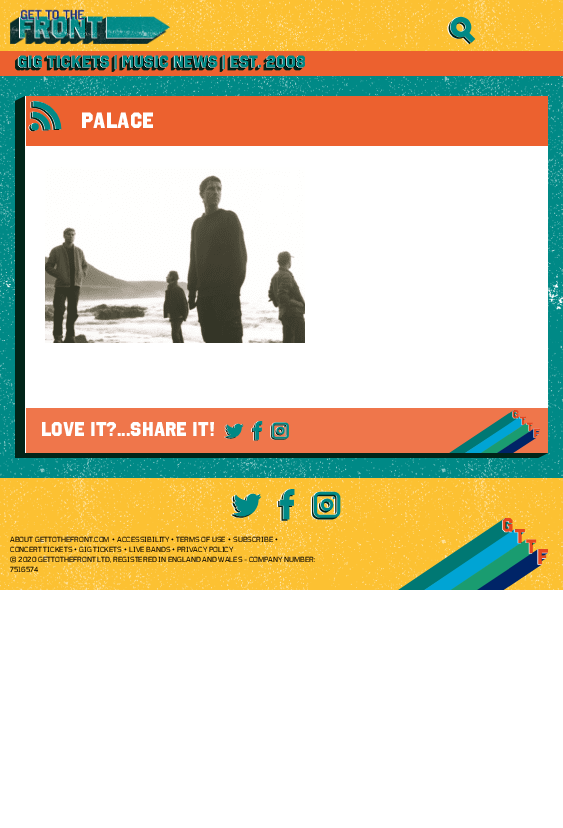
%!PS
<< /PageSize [563 828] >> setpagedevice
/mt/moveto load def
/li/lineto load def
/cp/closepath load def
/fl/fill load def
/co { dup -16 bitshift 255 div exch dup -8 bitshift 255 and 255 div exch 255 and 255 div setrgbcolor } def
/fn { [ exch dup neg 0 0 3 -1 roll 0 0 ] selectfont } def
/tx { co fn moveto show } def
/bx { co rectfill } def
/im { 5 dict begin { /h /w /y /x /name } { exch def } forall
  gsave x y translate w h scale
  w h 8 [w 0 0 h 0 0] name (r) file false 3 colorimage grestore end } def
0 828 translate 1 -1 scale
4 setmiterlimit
0 0 563 828 16#FFFFFF bx
0 76 563 402 16#008986 bx
(media/1.raw) 0 76 563 402 im
0 0 563 51 16#FCC132 bx
(media/2.raw) 0 0 563 51 im
(media/3.raw) 10 9 160 35 im
(media/4.raw) 447 16 29 29 im
0 51 563 25 16#EC612F bx
(media/5.raw) 15 55 290 17 im
16#012519 co
15 101 mt 15 458 li 538 458 li 538 453 li 25 453 li 25 101 li cp fl
25 146 523 262 16#FFFFFF bx
16#012519 co
25 101 mt 15 101 li 25 96 li cp fl
26 96 522 50 16#EC612F bx
25 96 1 50 16#FFFFFF bx
(media/6.raw) 28 101 34 31 im
(media/7.raw) 45 167 260 176 im
26 408 522 45 16#EF764B bx
25 408 1 45 16#FFFFFF bx
(media/8.raw) 224 423 20 16 im
(media/9.raw) 251 421 12 20 im
(media/10.raw) 270 422 19 18 im
(media/11.raw) 449 410 91 43 im
16#012519 co
538 453 mt 548 453 li 538 458 li cp fl
0 478 563 112 16#FCC132 bx
(media/12.raw) 0 478 563 112 im
(media/13.raw) 230 493 32 25 im
(media/14.raw) 276 489 19 32 im
(media/15.raw) 310 491 31 29 im
(media/16.raw) 398 518 150 72 im
(PALACE) 81 128 /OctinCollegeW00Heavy-Black 22 16#FFFFFF tx
(LOVE IT?...SHARE IT!) 41 436 /OctinCollegeW00Heavy-Black 20 16#FFFFFF tx
(ABOUT GETTOTHEFRONT.COM) 10 542 /Tomorrow-Regular 7 16#000000 tx
(•) 112 542 /Tomorrow-Regular 7 16#000000 tx
(ACCESSIBILITY) 117 542 /Tomorrow-Regular 7 16#000000 tx
(•) 171 542 /Tomorrow-Regular 7 16#000000 tx
(TERMS OF USE) 176 542 /Tomorrow-Regular 7 16#000000 tx
(•) 228 542 /Tomorrow-Regular 7 16#000000 tx
(SUBSCRIBE) 233 542 /Tomorrow-Regular 7 16#000000 tx
(•) 275 542 /Tomorrow-Regular 7 16#000000 tx
(CONCERT TICKETS) 10 552 /Tomorrow-Regular 7 16#000000 tx
(•) 74 552 /Tomorrow-Regular 7 16#000000 tx
(GIG TICKETS) 79 552 /Tomorrow-Regular 7 16#000000 tx
(•) 124 552 /Tomorrow-Regular 7 16#000000 tx
(LIVE BANDS) 129 552 /Tomorrow-Regular 7 16#000000 tx
(•) 172 552 /Tomorrow-Regular 7 16#000000 tx
(PRIVACY POLICY) 177 552 /Tomorrow-Regular 7 16#000000 tx
(© 2020 GETTOTHEFRONT LTD, REGISTERED IN ENGLAND AND WALES - COMPANY NUMBER:) 10 562 /Tomorrow-Regular 7 16#000000 tx
(7516574) 10 572 /Tomorrow-Regular 7 16#000000 tx
showpage
